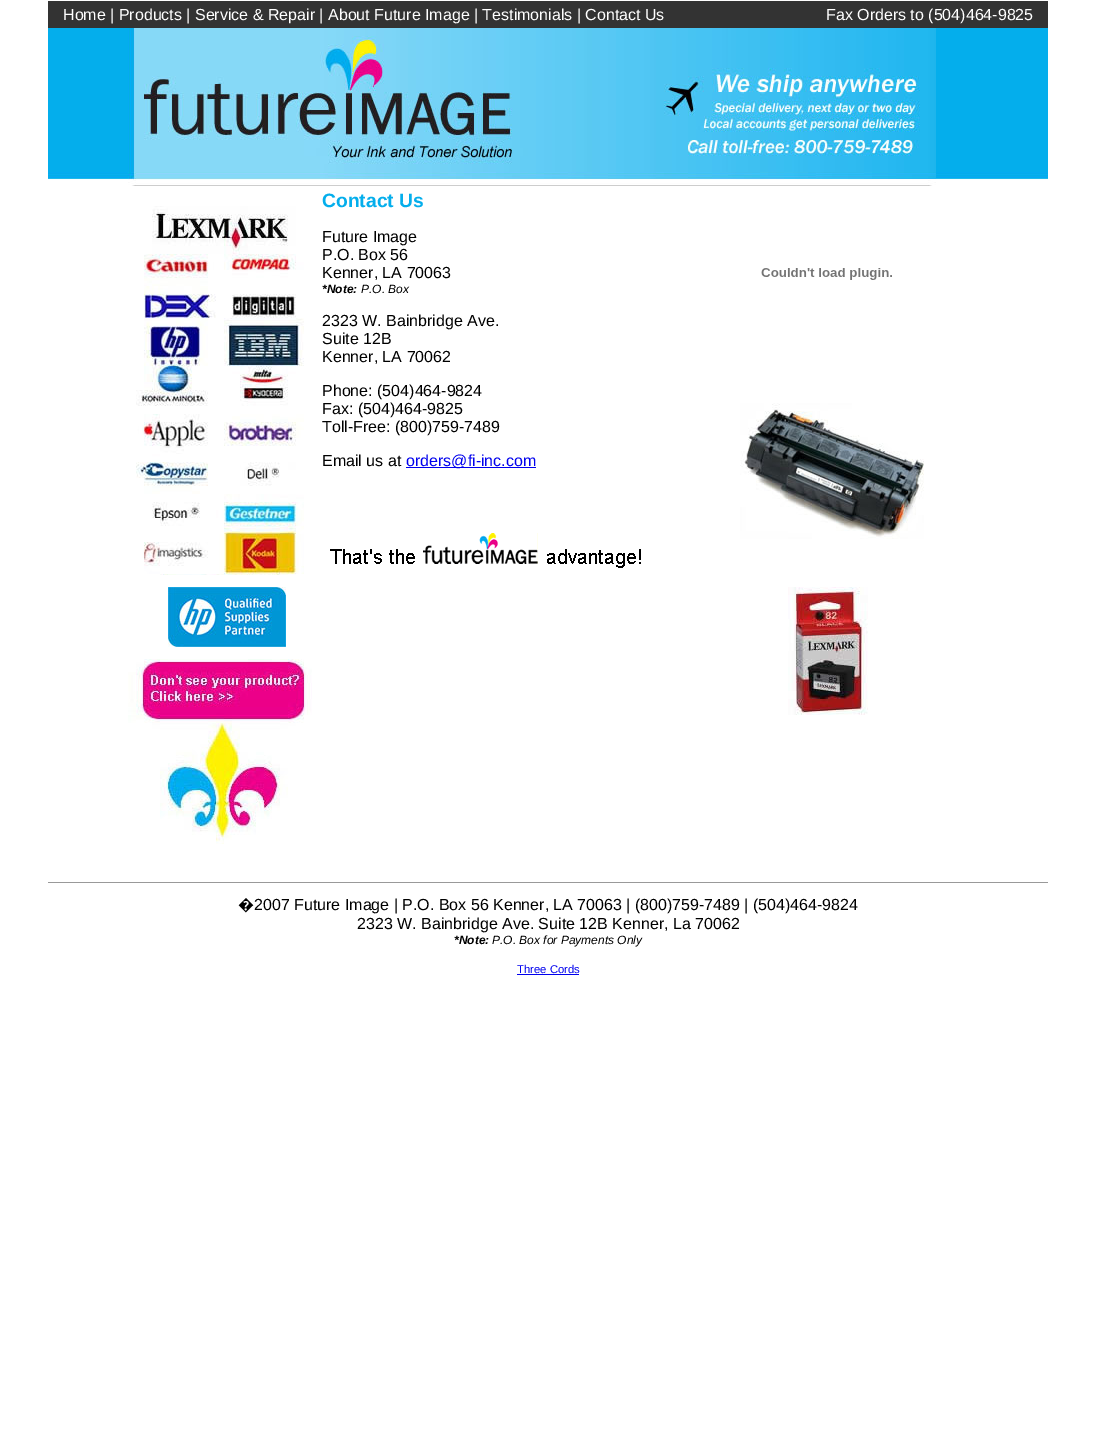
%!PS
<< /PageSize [1097 1439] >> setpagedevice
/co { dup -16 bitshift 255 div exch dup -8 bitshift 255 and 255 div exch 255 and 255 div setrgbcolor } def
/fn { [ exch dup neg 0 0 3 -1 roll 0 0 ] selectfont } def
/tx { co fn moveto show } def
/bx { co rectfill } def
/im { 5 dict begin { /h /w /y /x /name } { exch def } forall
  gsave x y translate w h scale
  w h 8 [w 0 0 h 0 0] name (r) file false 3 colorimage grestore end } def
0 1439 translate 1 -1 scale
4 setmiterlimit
0 0 1097 1439 16#FFFFFF bx
48 1 1000 27 16#333333 bx
(media/1.raw) 48 28 1000 158 im
(media/2.raw) 136 206 168 369 im
(media/3.raw) 168 587 118 60 im
(media/4.raw) 128 659 184 185 im
406 467 130 1 16#0000EE bx
(media/5.raw) 330 533 311 35 im
(media/6.raw) 761 268 131 12 im
(media/7.raw) 740 403 184 136 im
(media/8.raw) 788 587 80 128 im
48 882 1000 1 16#999999 bx
517 974 62 1 16#0000EE bx
(Home | Products | Service & Repair | About Future Image | Testimonials | Contact Us) 63 20 /LiberationSans-Regular 16 16#FFFFFF tx
(Fax Orders to \(504\)464-9825) 826 20 /LiberationSans-Regular 16 16#FFFFFF tx
(Contact Us) 322 207 /LiberationSans-Bold 19.25 16#04AEEC tx
(Future Image) 322 242 /LiberationSans-Regular 16 16#000000 tx
(P.O. Box 56) 322 260 /LiberationSans-Regular 16 16#000000 tx
(Kenner, LA 70063) 322 278 /LiberationSans-Regular 16 16#000000 tx
(*Note:) 322 293 /LiberationSans-BoldItalic 12 16#000000 tx
(P.O. Box) 361 293 /LiberationSans-Italic 12 16#000000 tx
(2323 W. Bainbridge Ave.) 322 326 /LiberationSans-Regular 16 16#000000 tx
(Suite 12B) 322 344 /LiberationSans-Regular 16 16#000000 tx
(Kenner, LA 70062) 322 362 /LiberationSans-Regular 16 16#000000 tx
(Phone: \(504\)464-9824) 322 396 /LiberationSans-Regular 16 16#000000 tx
(Fax: \(504\)464-9825) 322 414 /LiberationSans-Regular 16 16#000000 tx
(Toll-Free: \(800\)759-7489) 322 432 /LiberationSans-Regular 16 16#000000 tx
(Email us at) 322 466 /LiberationSans-Regular 16 16#000000 tx
(orders@fi-inc.com) 406 466 /LiberationSans-Regular 16 16#0000EE tx
(�) 238 910 /NotoSans-Regular 16 16#000000 tx
(2007 Future Image | P.O. Box 56 Kenner, LA 70063 | \(800\)759-7489 | \(504\)464-9824) 254 910 /LiberationSans-Regular 16 16#000000 tx
(2323 W. Bainbridge Ave. Suite 12B Kenner, La 70062) 357 929 /LiberationSans-Regular 16 16#000000 tx
(*Note:) 454 944 /LiberationSans-BoldItalic 12 16#000000 tx
(P.O. Box for Payments Only) 492 944 /LiberationSans-Italic 12 16#000000 tx
(Three Cords) 517 973 /LiberationSans-Regular 11.25 16#0000EE tx
showpage
